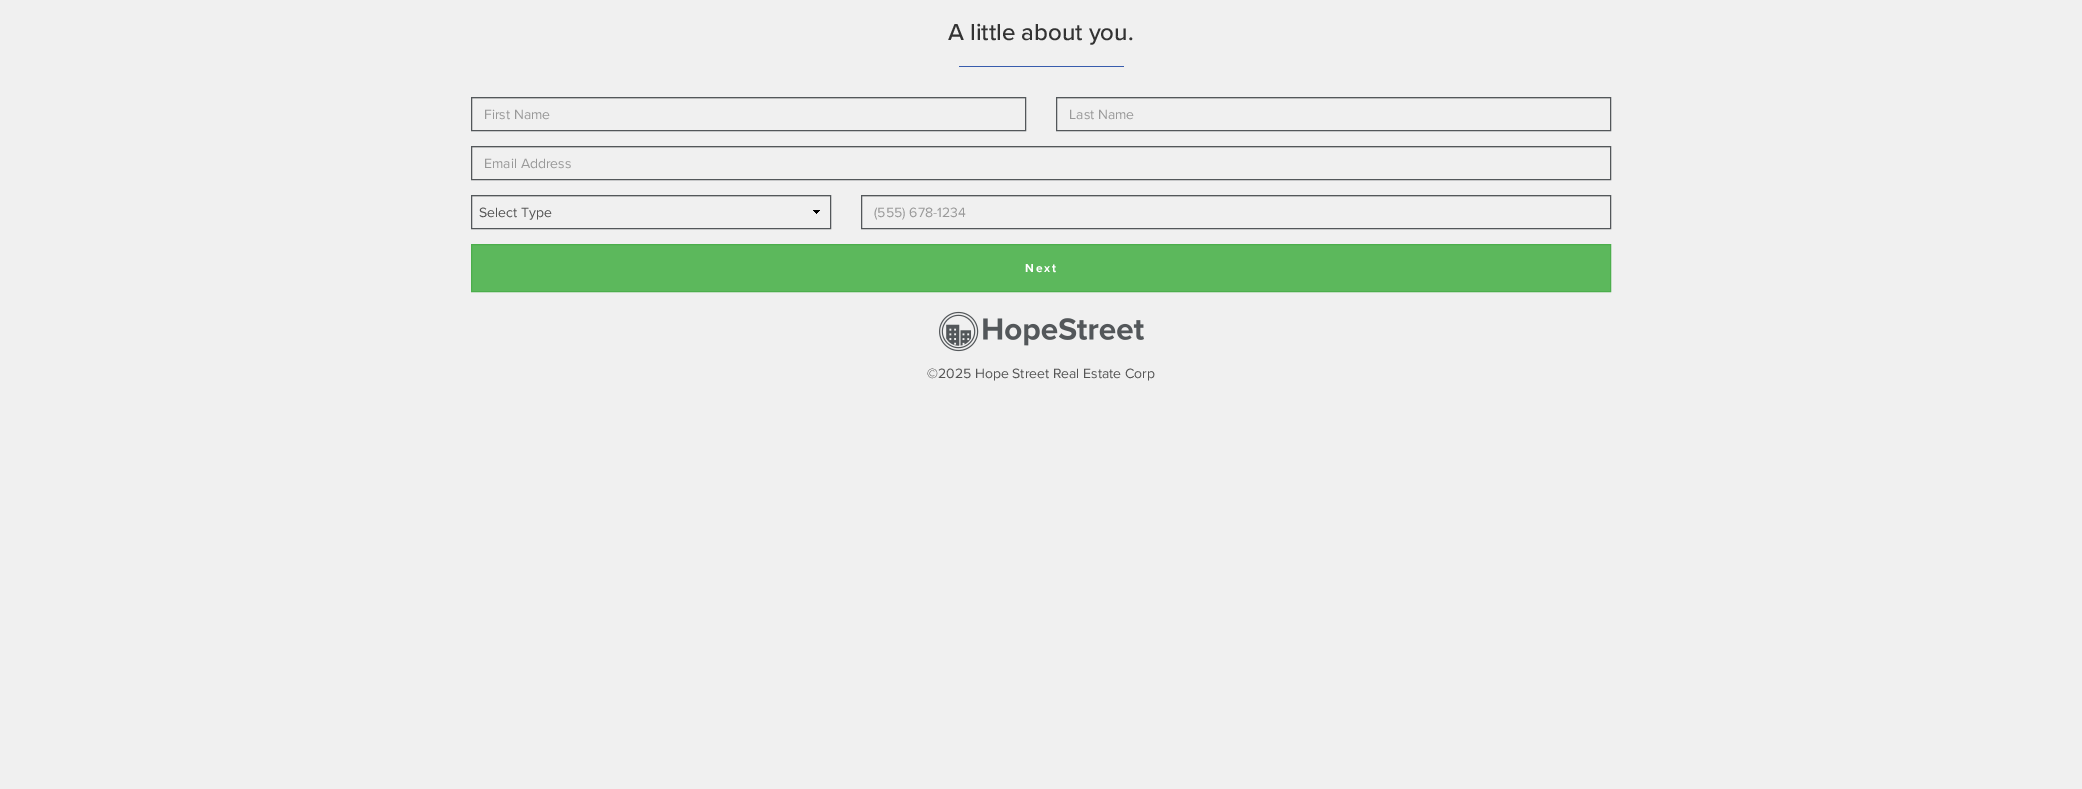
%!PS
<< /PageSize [2082 789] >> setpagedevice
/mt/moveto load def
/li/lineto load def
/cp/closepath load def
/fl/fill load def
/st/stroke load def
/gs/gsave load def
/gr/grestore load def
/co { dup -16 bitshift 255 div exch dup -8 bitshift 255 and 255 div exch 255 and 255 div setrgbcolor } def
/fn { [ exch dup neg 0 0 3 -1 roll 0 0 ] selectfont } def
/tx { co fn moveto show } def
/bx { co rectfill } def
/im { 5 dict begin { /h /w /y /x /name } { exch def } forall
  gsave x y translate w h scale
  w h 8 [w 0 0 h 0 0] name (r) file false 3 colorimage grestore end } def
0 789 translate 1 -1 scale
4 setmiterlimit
0 0 2082 789 16#F0F0F0 bx
959 66 165 1 16#385CAD bx
472 98 553 1 16#DEDEDE bx
16#53575A co
471.5 97.5 554 33 rectstroke
1057 98 553 1 16#DEDEDE bx
16#53575A co
1056.5 97.5 554 33 rectstroke
472 147 1138 1 16#DEDEDE bx
16#53575A co
471.5 146.5 1139 33 rectstroke
(media/1.raw) 813 210 7 4 im
472 196 358 1 16#DEDEDE bx
16#53575A co
471.5 195.5 359 33 rectstroke
862 196 748 1 16#DEDEDE bx
16#53575A co
861.5 195.5 749 33 rectstroke
16#5CB85C co
471.5 244.5 mt 1610.5 244.5 li 1610.5 291.5 li 471.5 291.5 li cp gs fl gr
16#4CAE4C co
st
(media/2.raw) 939 311 205 41 im
(A little about you.) 948 40 /ProximaNova-Medium 24 16#333333 tx
(First Name) 484 119 /ProximaNova-Regular 14 16#999999 tx
(Last Name) 1069 119 /ProximaNova-Regular 14 16#999999 tx
(Email Address) 484 168 /ProximaNova-Regular 14 16#999999 tx
(Select Type) 479 217 /ProximaNova-Regular 14 16#555555 tx
(\(555\) 678-1234) 874 217 /ProximaNova-Regular 14 16#999999 tx
/ProximaNova-Bold 12 fn
16#FFFFFF co
1025 272 mt 2 0 (Next) ashow
(©2025 Hope Street Real Estate Corp) 927 378 /ProximaNova-Regular 14 16#555555 tx
showpage
